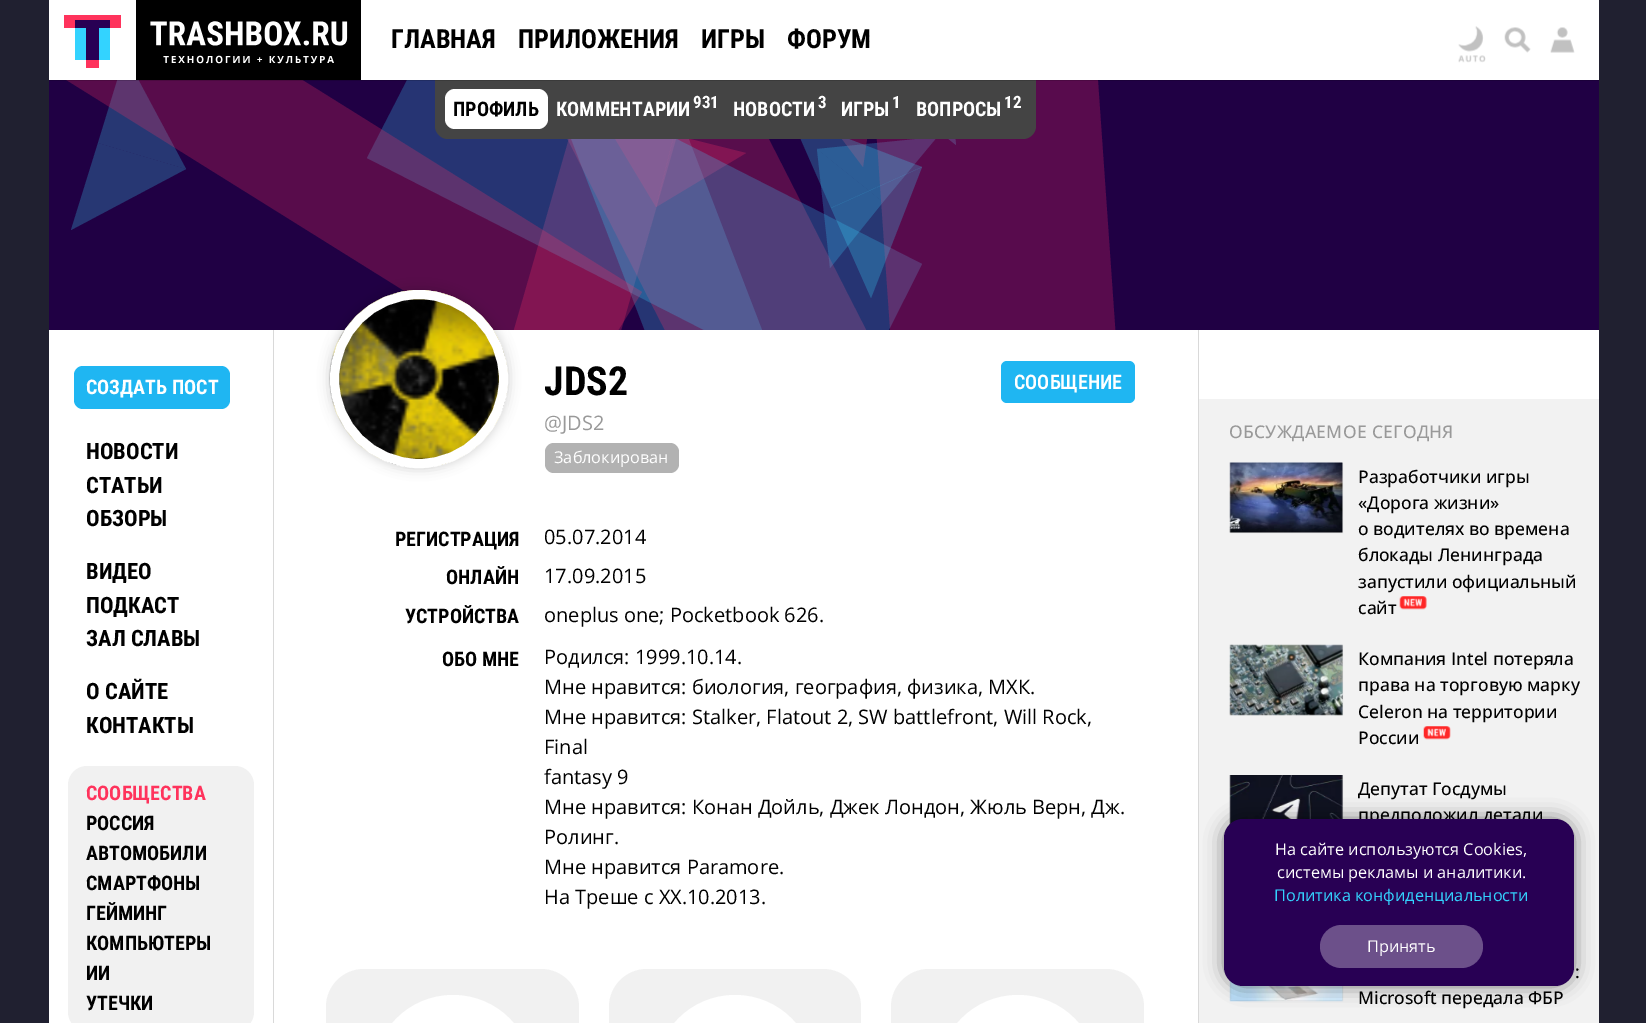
%!PS
<< /PageSize [1646 1023] /PageUsesTransparency true >> setpagedevice
/mt/moveto load def
/li/lineto load def
/ct/curveto load def
/cp/closepath load def
/fl/fill load def
/st/stroke load def
/gs/gsave load def
/gr/grestore load def
/lw/setlinewidth load def
/co { dup -16 bitshift 255 div exch dup -8 bitshift 255 and 255 div exch 255 and 255 div setrgbcolor } def
/fn { [ exch dup neg 0 0 3 -1 roll 0 0 ] selectfont } def
/tx { co fn moveto show } def
/bx { co rectfill } def
/al { dup .setfillconstantalpha .setstrokeconstantalpha } def
/ci { newpath 0 360 arc closepath } def
/rr { 5 dict begin { /r /h /w /y /x } { exch def } forall
  x r add y moveto x w add y 2 copy h add r arct x w add y h add x 1 index r arct
  x y h add x y r arct x y 2 copy exch w add exch r arct closepath end } def
/sh { 12 dict begin { /a /b /q /h /w /y /x } { exch def } forall gsave /was 0 def
  9 -2 -9 { dup b mul 4 div /e exch def 1 sub .425 mul 2.718 exch exp 1 add a .99 .min exch div /now exch def
    1 1 now sub 1 was sub div sub al /was now def
    w h .min e 2 mul add 0 gt { x e sub y e sub w e 2 mul add h e 2 mul add
      q e add b .6 mul add w h .min 2 div e add .min 0 .max rr fill } if } for grestore end } def
/im { 5 dict begin { /h /w /y /x /name } { exch def } forall
  gsave x y translate w h scale
  w h 8 [w 0 0 h 0 0] name (r) file false 3 colorimage grestore end } def
0 .pushpdf14devicefilter
0 1023 translate 1 -1 scale
4 setmiterlimit
0 0 1646 1023 16#202030 bx
49 330 1550 693 16#FFFFFF bx
49 80 1550 250 16#200044 bx
16#273773 co
125 55 mt 186 169 li 98 143 li cp fl
186 169 mt 71 230 li 98 143 li cp fl
gs
49 80 1550 250 rectclip
16#580B4D co
686 104 mt 579 477 li 480 448 li 587 76 li cp fl
0.25 al
16#39D4FF co
841 841 mt 346 -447 li 449 -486 li 943 802 li cp fl
gr
16#7C3975 co
656 207 mt 602 117 li 674 135 li cp fl
0.25 al
16#FF2B68 co
746 153 mt 656 207 li 674 135 li cp fl
1 al
16#273373 co
817 149 mt 937 137 li 883 202 li cp fl
830 268 mt 817 149 li 883 202 li cp fl
0.25 al
16#FF3B61 co
863 167 mt 827 119 li 869 125 li cp fl
gs
49 80 1550 250 rectclip
16#FF3365 co
916 823 mt 353 -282 li 513 -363 li 1076 742 li cp fl
gr
1 al
16#273573 co
948 63 mt 956 145 li 911 109 li cp fl
gs
49 80 1550 250 rectclip
0.25 al
16#37D0FF co
439 18 mt 922 264 li 851 405 li 367 158 li cp fl
16#FF3161 co
-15 -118 mt 642 292 li 576 398 li -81 -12 li cp fl
16#FF2D68 co
903 515 mt 860 -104 li 1084 -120 li 1127 499 li cp fl
gr
0.25 al
16#3ADBFF co
922 167 mt 871 298 li 831 208 li cp fl
791 117 mt 922 167 li 831 208 li cp fl
1 al
16#444444 co
435 79 mt 1036 79 li 1036 126 li 1036 133 1030 139 1023 139 ct 448 139 li 441 139 435 133 435 126 ct cp fl
49 0 1550 80 16#FFFFFF bx
64 15 57 13 16#FF335C bx
75 20 35 8 16#280054 bx
86 28 13 40 16#FF335C bx
75 28 35 32 16#33D3FF bx
86 28 13 32 16#280054 bx
136 0 225 80 16#000000 bx
(media/1.raw) 150 21 198 43 im
(media/2.raw) 1458 26 28 37 im
(media/3.raw) 1504 27 27 26 im
(media/4.raw) 1550 27 25 26 im
0.15 al
49 80 1550 1 16#000000 bx
1 al
16#FFFFFF co
445 89 103 40 10 rr fl
273 330 1 693 16#D9D9D9 bx
16#1FB6F2 co
74 366 156 43 9 rr fl
16#F1F1F1 co
68 766 186 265 19 rr fl
1198 330 1 693 16#D9D9D9 bx
16#000000 co
330 290 178 178 89 6 .2 sh
(media/5.raw) 329 290 179 178 im
16#FFFFFF co
9 lw
419 379 84.5 ci st
16#B2B2B2 co
545 443 134 30 9 rr fl
16#1FB6F2 co
1001 361 134 42 6 rr fl
16#F1F1F1 co
326 969 253 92 38 rr fl
16#FFFFFF co
373 995 160 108 80 rr fl
16#F1F1F1 co
609 969 252 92 38 rr fl
16#FFFFFF co
655 995 160 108 80 rr fl
16#F1F1F1 co
891 969 253 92 38 rr fl
16#FFFFFF co
938 995 160 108 80 rr fl
1199 399 400 624 16#F2F2F2 bx
(media/6.raw) 1229 462 114 71 im
0.05 al
16#000000 co
1 lw
1230.5 463.5 112 69 rectstroke
1 al
(media/7.raw) 1399 596 28 14 im
(media/8.raw) 1229 644 114 72 im
0.05 al
1230.5 645.5 112 69 rectstroke
1 al
(media/9.raw) 1423 726 28 14 im
(media/10.raw) 1229 775 114 51 im
0.05 al
1230.5 775.5 112 69 rectstroke
1 al
(media/11.raw) 1229 979 114 23 im
0.05 al
1230.5 931.5 112 69 rectstroke
1 al
1224 819 350 167 19 9.5 .5 sh
(ГЛАВНАЯ) 391 48 /RobotoCondensed-Bold 26.25 16#000000 tx
(ПРИЛОЖЕНИЯ) 518 48 /RobotoCondensed-Bold 26.25 16#000000 tx
(ИГРЫ) 701 48 /RobotoCondensed-Bold 26.25 16#000000 tx
(ФОРУМ) 787 48 /RobotoCondensed-Bold 26.25 16#000000 tx
(ПРОФИЛЬ) 453 116 /RobotoCondensed-Bold 20 16#000000 tx
(КОММЕНТАРИИ) 556 116 /RobotoCondensed-Bold 20 16#FFFFFF tx
(931) 693 108 /RobotoCondensed-Bold 17 16#FFFFFF tx
(НОВОСТИ) 733 116 /RobotoCondensed-Bold 20 16#FFFFFF tx
(3) 818 108 /RobotoCondensed-Bold 17 16#FFFFFF tx
(ИГРЫ) 841 116 /RobotoCondensed-Bold 20 16#FFFFFF tx
(1) 892 108 /RobotoCondensed-Bold 17 16#FFFFFF tx
(ВОПРОСЫ) 916 116 /RobotoCondensed-Bold 20 16#FFFFFF tx
(12) 1004 108 /RobotoCondensed-Bold 17 16#FFFFFF tx
(СОЗДАТЬ ПОСТ) 86 394 /RobotoCondensed-Bold 20 16#FFFFFF tx
(НОВОСТИ) 86 459 /RobotoCondensed-Bold 22.5 16#000000 tx
(СТАТЬИ) 86 493 /RobotoCondensed-Bold 22.5 16#000000 tx
(ОБЗОРЫ) 86 526 /RobotoCondensed-Bold 22.5 16#000000 tx
(ВИДЕО) 86 579 /RobotoCondensed-Bold 22.5 16#000000 tx
(ПОДКАСТ) 86 613 /RobotoCondensed-Bold 22.5 16#000000 tx
(ЗАЛ СЛАВЫ) 86 646 /RobotoCondensed-Bold 22.5 16#000000 tx
(О САЙТЕ) 86 699 /RobotoCondensed-Bold 22.5 16#000000 tx
(КОНТАКТЫ) 86 733 /RobotoCondensed-Bold 22.5 16#000000 tx
(СООБЩЕСТВА) 86 800 /RobotoCondensed-Bold 20 16#FF335C tx
(РОССИЯ) 86 830 /RobotoCondensed-Bold 20 16#000000 tx
(АВТОМОБИЛИ) 86 860 /RobotoCondensed-Bold 20 16#000000 tx
(СМАРТФОНЫ) 86 890 /RobotoCondensed-Bold 20 16#000000 tx
(ГЕЙМИНГ) 86 920 /RobotoCondensed-Bold 20 16#000000 tx
(КОМПЬЮТЕРЫ) 86 950 /RobotoCondensed-Bold 20 16#000000 tx
(ИИ) 86 980 /RobotoCondensed-Bold 20 16#000000 tx
(УТЕЧКИ) 86 1010 /RobotoCondensed-Bold 20 16#000000 tx
(JDS2) 544 395 /RobotoCondensed-Bold 40 16#000000 tx
(@JDS2) 544 430 /OpenSans-Regular 20 16#999999 tx
(Заблокирован) 554 463 /OpenSans-Regular 16.25 16#FFFFFF tx
(СООБЩЕНИЕ) 1014 389 /RobotoCondensed-SemiBold 20 16#FFFFFF tx
(РЕГИСТРАЦИЯ) 395 546 /RobotoCondensed-Bold 20 16#000000 tx
(05.07.2014) 544 544 /OpenSans-Regular 20 16#000000 tx
(ОНЛАЙН) 446 584 /RobotoCondensed-Bold 20 16#000000 tx
(17.09.2015) 544 583 /OpenSans-Regular 20 16#000000 tx
(УСТРОЙСТВА) 405 623 /RobotoCondensed-Bold 20 16#000000 tx
(oneplus one; Pocketbook 626.) 544 622 /OpenSans-Regular 20 16#000000 tx
(ОБО МНЕ) 442 666 /RobotoCondensed-Bold 20 16#000000 tx
(Родился: 1999.10.14.) 544 664 /OpenSans-Regular 20 16#000000 tx
(Мне нравится: биология, география, физика, МХК.) 544 694 /OpenSans-Regular 20 16#000000 tx
(Мне нравится: Stalker, Flatout 2, SW battlefront, Will Rock,) 544 724 /OpenSans-Regular 20 16#000000 tx
(Final) 544 754 /OpenSans-Regular 20 16#000000 tx
(fantasy 9) 544 784 /OpenSans-Regular 20 16#000000 tx
(Мне нравится: Конан Дойль, Джек Лондон, Жюль Верн, Дж.) 544 814 /OpenSans-Regular 20 16#000000 tx
(Ролинг.) 544 844 /OpenSans-Regular 20 16#000000 tx
(Мне нравится Paramore.) 544 874 /OpenSans-Regular 20 16#000000 tx
(На Треше с ХХ.10.2013.) 544 904 /OpenSans-Regular 20 16#000000 tx
/OpenSans-Medium 17.5 fn
16#999999 co
1229 438 mt .3 0 (ОБСУЖДАЕМОЕ СЕГОДНЯ) ashow
(Разработчики игры) 1358 483 /OpenSans-Medium 17.5 16#000000 tx
(«Дорога жизни») 1358 509 /OpenSans-Medium 17.5 16#000000 tx
(о водителях во времена) 1358 535 /OpenSans-Medium 17.5 16#000000 tx
(блокады Ленинграда) 1358 561 /OpenSans-Medium 17.5 16#000000 tx
(запустили официальный) 1358 588 /OpenSans-Medium 17.5 16#000000 tx
(сайт) 1358 614 /OpenSans-Medium 17.5 16#000000 tx
(Компания Intel потеряла) 1358 665 /OpenSans-Medium 17.5 16#000000 tx
(права на торговую марку) 1358 691 /OpenSans-Medium 17.5 16#000000 tx
(Celeron на территории) 1358 718 /OpenSans-Medium 17.5 16#000000 tx
(России) 1358 744 /OpenSans-Medium 17.5 16#000000 tx
(Депутат Госдумы) 1358 795 /OpenSans-Medium 17.5 16#000000 tx
(предположил детали) 1358 821 /OpenSans-Medium 17.5 16#000000 tx
(:) 1575 978 /OpenSans-Medium 17.5 16#000000 tx
(Microsoft передала ФБР) 1358 1004 /OpenSans-Medium 17.5 16#000000 tx
16#280054 co
1224 819 350 167 19 rr fl
(На сайте используются Cookies,) 1275 855 /OpenSans-Regular 16.25 16#FFFFFF tx
(системы рекламы и аналитики.) 1277 878 /OpenSans-Regular 16.25 16#FFFFFF tx
(Политика конфиденциальности) 1274 901 /OpenSans-Regular 16.25 16#33D3FF tx
16#6C508A co
1320 925 163 43 21.5 rr fl
(Принять) 1367 952 /OpenSans-Regular 16.25 16#FFFFFF tx
.poppdf14devicefilter showpage
